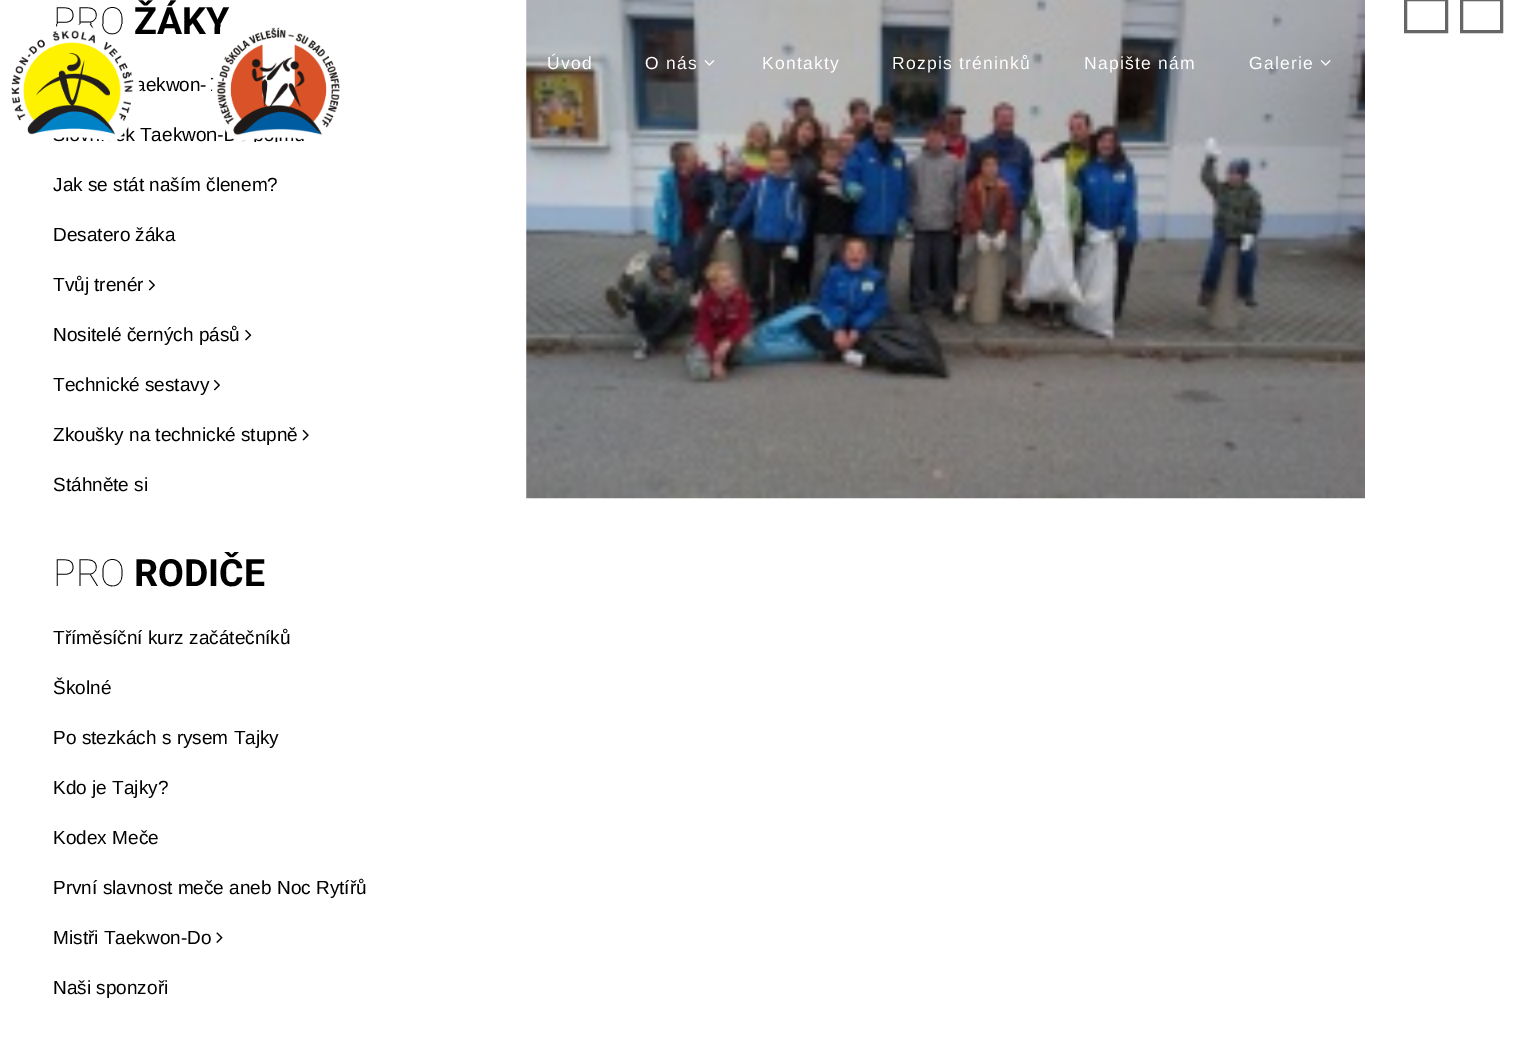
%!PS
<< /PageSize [1527 1052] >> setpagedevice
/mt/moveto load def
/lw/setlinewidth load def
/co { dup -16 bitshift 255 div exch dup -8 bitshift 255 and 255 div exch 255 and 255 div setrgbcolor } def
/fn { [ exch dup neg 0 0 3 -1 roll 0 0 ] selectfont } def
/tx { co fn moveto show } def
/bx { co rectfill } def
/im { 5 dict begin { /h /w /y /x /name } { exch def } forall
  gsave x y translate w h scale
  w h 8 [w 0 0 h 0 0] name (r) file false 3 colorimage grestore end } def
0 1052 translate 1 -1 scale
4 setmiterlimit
0 0 1527 1052 16#FFFFFF bx
(media/1.raw) 148 279 7 12 im
(media/2.raw) 245 329 7 12 im
(media/1.raw) 213 379 7 12 im
(media/3.raw) 302 429 7 12 im
(media/4.raw) 216 932 7 11 im
(media/5.raw) 526 0 839 499 im
16#666666 co
3 lw
1405.5 -.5 41 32 rectstroke
1461.5 -.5 40 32 rectstroke
(media/8.raw) 704 60 11 6 im
(media/9.raw) 1320 60 11 6 im
(PRO) 53 34 /Roboto-Thin 37.5 16#000000 tx
(ŽÁKY) 134 34 /Roboto-Bold 37.5 16#000000 tx
(aekwon-) 135 91 /LiberationSans-Regular 19 16#000000 tx
(k Taekwon-) 125 141 /LiberationSans-Regular 19 16#000000 tx
(Jak se stát naším členem?) 53 191 /LiberationSans-Regular 19 16#000000 tx
(Desatero žáka) 53 241 /LiberationSans-Regular 19 16#000000 tx
(Tvůj trenér) 53 291 /LiberationSans-Regular 19 16#000000 tx
(Nositelé černých pásů) 53 341 /LiberationSans-Regular 19 16#000000 tx
(Technické sestavy) 53 391 /LiberationSans-Regular 19 16#000000 tx
(Zkoušky na technické stupně) 53 441 /LiberationSans-Regular 19 16#000000 tx
(Stáhněte si) 53 491 /LiberationSans-Regular 19 16#000000 tx
(PRO) 53 586 /Roboto-Thin 37.5 16#000000 tx
(RODIČE) 134 586 /Roboto-Bold 37.5 16#000000 tx
(Tříměsíční kurz začátečníků) 53 644 /LiberationSans-Regular 19 16#000000 tx
(Školné) 53 694 /LiberationSans-Regular 19 16#000000 tx
(Po stezkách s rysem Tajky) 53 744 /LiberationSans-Regular 19 16#000000 tx
(Kdo je Tajky?) 53 794 /LiberationSans-Regular 19 16#000000 tx
(Kodex Meče) 53 844 /LiberationSans-Regular 19 16#000000 tx
(První slavnost meče aneb Noc Rytířů) 53 894 /LiberationSans-Regular 19 16#000000 tx
(Mistři Taekwon-Do) 53 944 /LiberationSans-Regular 19 16#000000 tx
(Naši sponzoři) 53 994 /LiberationSans-Regular 19 16#000000 tx
(media/6.raw) 11 24 129 118 im
(media/7.raw) 211 27 129 115 im
/LiberationSans-Regular 17.5 fn
16#FFFFFF co
547 69 mt 1.25 0 (Úvod) ashow
645 69 mt 1.25 0 (O nás) ashow
762 69 mt 1.25 0 (Kontakty) ashow
892 69 mt 1.25 0 (Rozpis tréninků) ashow
1084 69 mt 1.25 0 (Napište nám) ashow
1249 69 mt 1.25 0 (Galerie) ashow
showpage
